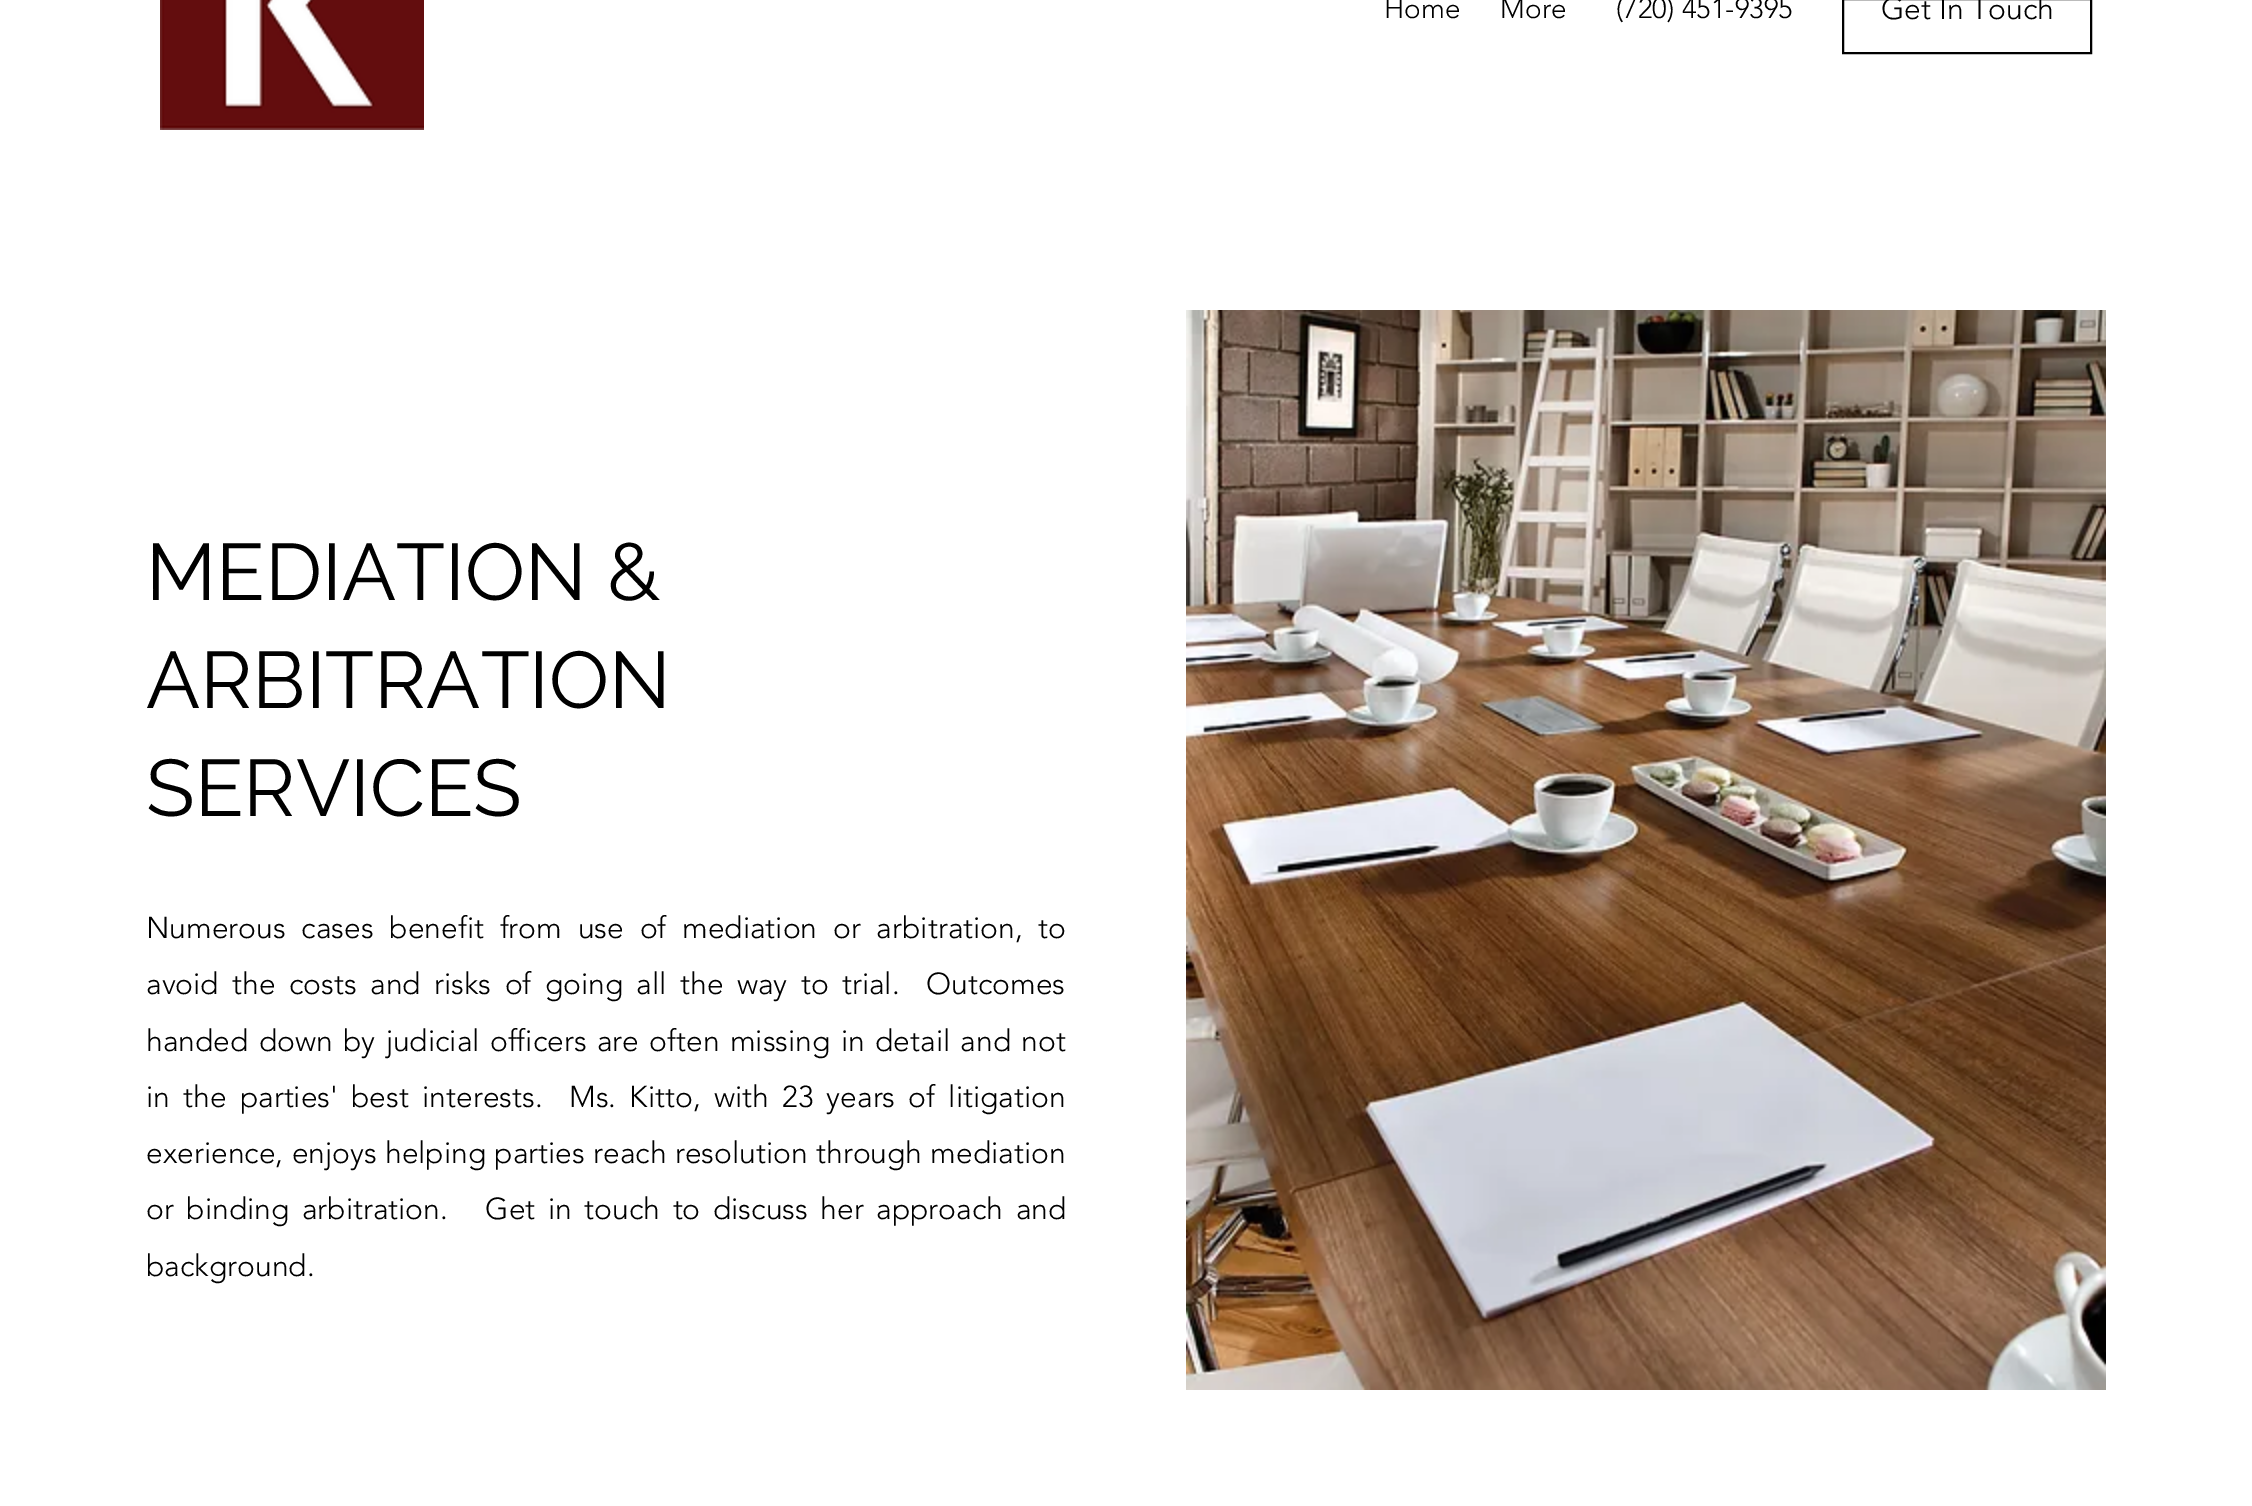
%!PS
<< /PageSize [2252 1506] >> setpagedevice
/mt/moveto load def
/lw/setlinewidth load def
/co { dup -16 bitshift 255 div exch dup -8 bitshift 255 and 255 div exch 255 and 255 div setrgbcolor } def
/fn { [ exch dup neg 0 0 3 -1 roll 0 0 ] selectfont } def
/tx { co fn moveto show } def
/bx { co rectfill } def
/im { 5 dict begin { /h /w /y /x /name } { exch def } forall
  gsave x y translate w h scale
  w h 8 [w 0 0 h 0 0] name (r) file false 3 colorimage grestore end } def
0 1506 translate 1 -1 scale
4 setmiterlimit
0 0 2252 1506 16#FFFFFF bx
(media/1.raw) 160 0 264 130 im
16#000000 co
2 lw
1843 -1 248 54 rectstroke
(media/2.raw) 1186 310 920 1080 im
(Home) 1384 18 /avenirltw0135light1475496-Light 28 16#000000 tx
(More) 1500 18 /avenirltw0135light1475496-Light 28 16#000000 tx
(\(720\) 451-9395) 1616 18 /avenirltw0135light1475496-Light 28 16#000000 tx
(Get In Touch) 1881 19 /avenirltw0135light1475496-Light 30 16#000000 tx
(MEDIATION &) 146 600 /Raleway-Regular 80 16#000000 tx
(ARBITRATION) 146 708 /Raleway-Regular 80 16#000000 tx
(SERVICES) 146 816 /Raleway-Regular 80 16#000000 tx
/avenirltw0135light1475496-Light 30 fn
146 938 mt 8 0 32 (Numerous cases benefit from use of mediation or arbitration, to) widthshow
146 994 mt 5.6 0 32 (avoid the costs and risks of going all the way to trial.  Outcomes) widthshow
146 1051 mt 2.6 0 32 (handed down by judicial officers are often missing in detail and not) widthshow
146 1107 mt 5.4 0 32 (in the parties' best interests.  Ms. Kitto, with 23 years of litigation) widthshow
146 1163 mt .5 0 32 (exerience, enjoys helping parties reach resolution through mediation) widthshow
146 1219 mt 4.75 0 32 (or binding arbitration.   Get in touch to discuss her approach and) widthshow
(background.) 146 1276 /avenirltw0135light1475496-Light 30 16#000000 tx
showpage
